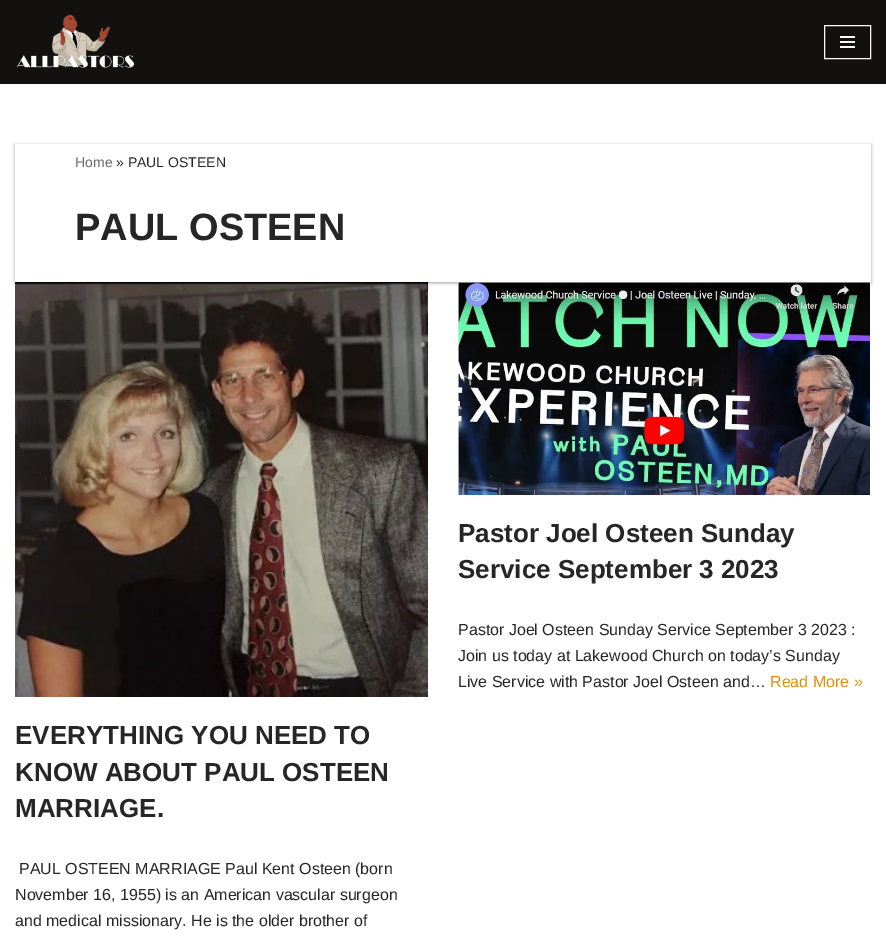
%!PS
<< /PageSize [886 936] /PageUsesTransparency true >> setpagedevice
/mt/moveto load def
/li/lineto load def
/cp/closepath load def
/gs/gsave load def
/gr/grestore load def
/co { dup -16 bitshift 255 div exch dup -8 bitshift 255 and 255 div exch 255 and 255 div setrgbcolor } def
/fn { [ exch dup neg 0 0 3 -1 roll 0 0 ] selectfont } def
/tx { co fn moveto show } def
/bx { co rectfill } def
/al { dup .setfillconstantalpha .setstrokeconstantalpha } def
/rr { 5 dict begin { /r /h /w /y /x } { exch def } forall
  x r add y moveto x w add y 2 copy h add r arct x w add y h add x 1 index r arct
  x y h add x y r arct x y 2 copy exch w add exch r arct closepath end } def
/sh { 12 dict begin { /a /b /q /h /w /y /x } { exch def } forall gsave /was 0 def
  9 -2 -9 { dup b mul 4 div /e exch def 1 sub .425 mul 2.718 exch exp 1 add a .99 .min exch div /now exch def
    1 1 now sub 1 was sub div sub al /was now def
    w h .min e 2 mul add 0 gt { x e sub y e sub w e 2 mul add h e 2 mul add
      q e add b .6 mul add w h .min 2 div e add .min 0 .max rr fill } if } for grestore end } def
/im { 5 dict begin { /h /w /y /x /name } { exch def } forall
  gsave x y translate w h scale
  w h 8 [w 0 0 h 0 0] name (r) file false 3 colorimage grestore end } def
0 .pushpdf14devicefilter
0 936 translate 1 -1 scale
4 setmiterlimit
0 0 886 936 16#FFFFFF bx
0 0 886 84 16#131010 bx
(media/1.raw) 17 14 118 54 im
16#FAFAFA co
824.5 25.5 46 33 rectstroke
840 36 15 2 16#FAFAFA bx
840 41 15 2 16#FAFAFA bx
840 46 15 2 16#FAFAFA bx
gs
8 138 mt 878 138 li 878 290 li 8 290 li cp 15 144 mt 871 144 li 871 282 li 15 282 li cp eoclip newpath
16#303030 co
14 144 858 140 0 1.5 .15 sh
gr
gs
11 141 mt 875 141 li 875 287 li 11 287 li cp 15 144 mt 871 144 li 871 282 li 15 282 li cp eoclip newpath
16#303030 co
15 145 856 138 0 1 .3 sh
gr
(media/2.raw) 458 282 413 213 im
(media/3.raw) 15 282 413 415 im
(Home) 75 167 /LiberationSans-Regular 14 16#676767 tx
(» PAUL OSTEEN) 116 167 /LiberationSans-Regular 14 16#272626 tx
(PAUL OSTEEN) 75 240 /LiberationSans-Bold 38 16#272626 tx
(Pastor Joel Osteen Sunday) 458 542 /LiberationSans-Bold 26 16#272626 tx
(Service September 3 2023) 458 578 /LiberationSans-Bold 26 16#272626 tx
(Pastor Joel Osteen Sunday Service September 3 2023 :) 458 635 /LiberationSans-Regular 16 16#272626 tx
(Join us today at Lakewood Church on today’s Sunday) 458 661 /LiberationSans-Regular 16 16#272626 tx
(Live Service with Pastor Joel Osteen and…) 458 687 /LiberationSans-Regular 16 16#272626 tx
(Read More ») 770 687 /LiberationSans-Regular 16 16#DE8F07 tx
(EVERYTHING YOU NEED TO) 15 744 /LiberationSans-Bold 26 16#272626 tx
(KNOW ABOUT PAUL OSTEEN) 15 781 /LiberationSans-Bold 26 16#272626 tx
(MARRIAGE.) 15 817 /LiberationSans-Bold 26 16#272626 tx
(PAUL OSTEEN MARRIAGE Paul Kent Osteen \(born) 19 874 /LiberationSans-Regular 16 16#272626 tx
(November 16, 1955\) is an American vascular surgeon) 15 900 /LiberationSans-Regular 16 16#272626 tx
(and medical missionary. He is the older brother of) 15 926 /LiberationSans-Regular 16 16#272626 tx
.poppdf14devicefilter showpage
